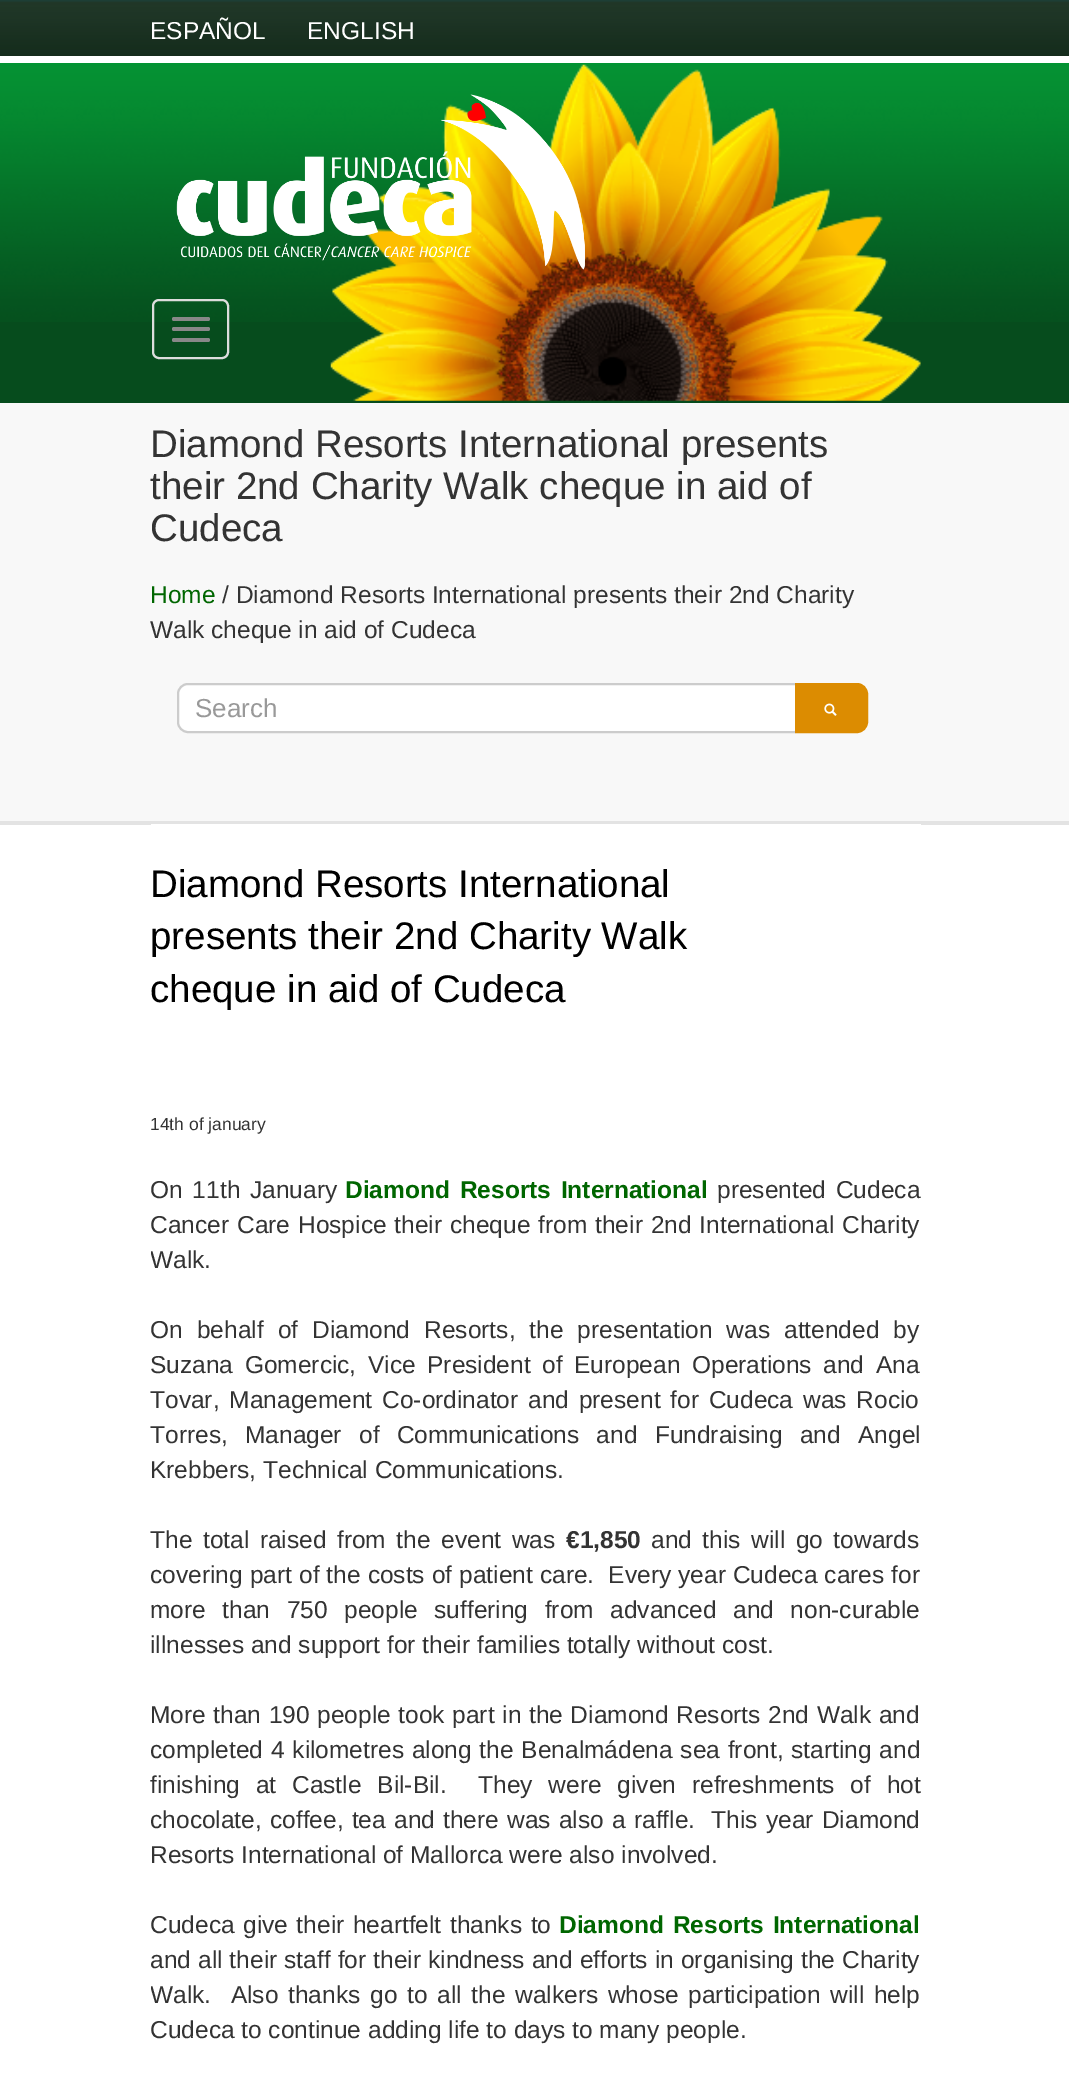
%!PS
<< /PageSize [1069 2073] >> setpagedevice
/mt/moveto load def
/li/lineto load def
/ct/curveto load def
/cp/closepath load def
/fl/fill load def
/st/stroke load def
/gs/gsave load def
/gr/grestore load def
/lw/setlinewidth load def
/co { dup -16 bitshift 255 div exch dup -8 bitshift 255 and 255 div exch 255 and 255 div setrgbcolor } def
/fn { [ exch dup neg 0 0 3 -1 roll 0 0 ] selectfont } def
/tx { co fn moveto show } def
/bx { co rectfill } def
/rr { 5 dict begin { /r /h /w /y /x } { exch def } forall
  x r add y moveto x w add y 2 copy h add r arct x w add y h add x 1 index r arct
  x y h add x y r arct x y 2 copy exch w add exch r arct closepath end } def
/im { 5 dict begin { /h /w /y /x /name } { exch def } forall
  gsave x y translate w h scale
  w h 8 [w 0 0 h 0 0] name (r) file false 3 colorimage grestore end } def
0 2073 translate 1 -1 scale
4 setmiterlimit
0 0 1069 2073 16#FFFFFF bx
(media/1.raw) 0 0 1069 56 im
0 322 1069 81 16#064C1D bx
(media/2.raw) 0 63 1069 259 im
(media/3.raw) 330 64 591 337 im
(media/4.raw) 176 94 409 176 im
16#DDDDDD co
2 lw
153 300 75 58 6 rr st
16#888888 co
172 317 38 4 2 rr fl
172 327 38 4 2 rr fl
172 338 38 4 2 rr fl
0 403 1069 418 16#F8F8F8 bx
0 821 1069 4 16#E3E3E3 bx
16#FFFFFF co
178 684 626 48 10 rr gs fl gr
16#CCCCCC co
st
16#DC8C01 co
796 684 mt 857 684 li 862.5 684 867 688.5 867 694 ct 867 722 li 867 727.5 862.5 732 857 732 ct 796 732 li cp gs fl gr
st
(media/5.raw) 824 703 13 13 im
151 824 770 1 16#FFFFFF bx
(ESPAÑOL) 150 39 /LiberationSans-Regular 24.5 16#FFFFFF tx
(ENGLISH) 307 39 /LiberationSans-Regular 24.5 16#FFFFFF tx
(Diamond Resorts International presents) 150 457 /LiberationSans-Regular 38.5 16#333333 tx
(their 2nd Charity Walk cheque in aid of) 150 499 /LiberationSans-Regular 38.5 16#333333 tx
(Cudeca) 150 541 /LiberationSans-Regular 38.5 16#333333 tx
(Home) 150 603 /LiberationSans-Regular 24.5 16#006600 tx
(/ Diamond Resorts International presents their 2nd Charity) 222 603 /LiberationSans-Regular 24.5 16#333333 tx
(Walk cheque in aid of Cudeca) 150 638 /LiberationSans-Regular 24.5 16#333333 tx
(Search) 195 717 /LiberationSans-Regular 26 16#999999 tx
(Diamond Resorts International) 150 897 /LiberationSans-Regular 38.5 16#000000 tx
(presents their 2nd Charity Walk) 150 949 /LiberationSans-Regular 38.5 16#000000 tx
(cheque in aid of Cudeca) 150 1002 /LiberationSans-Regular 38.5 16#000000 tx
(14th of january) 150 1130 /LiberationSans-Regular 17.5 16#333333 tx
gs
151 824 770 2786 rectclip
/LiberationSans-Regular 24.5 fn
150 1198 mt 3 0 32 (On 11th January) widthshow
gr
/LiberationSans-Bold 24.5 fn
16#006600 co
345 1198 mt 3 0 32 (Diamond Resorts International) widthshow
/LiberationSans-Regular 24.5 fn
16#333333 co
717 1198 mt 3 0 32 (presented Cudeca) widthshow
150 1233 mt 1.1 0 32 (Cancer Care Hospice their cheque from their 2nd International Charity) widthshow
gs
151 824 770 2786 rectclip
(Walk.) 150 1268 /LiberationSans-Regular 24.5 16#333333 tx
150 1338 mt 7.25 0 32 (On behalf of Diamond Resorts, the presentation was attended by) widthshow
gr
150 1373 mt 4.75 0 32 (Suzana Gomercic, Vice President of European Operations and Ana) widthshow
150 1408 mt 3 0 32 (Tovar, Management Co-ordinator and present for Cudeca was Rocio) widthshow
150 1443 mt 10.5 0 32 (Torres, Manager of Communications and Fundraising and Angel) widthshow
(Krebbers, Technical Communications.) 150 1478 /LiberationSans-Regular 24.5 16#333333 tx
150 1548 mt 3.75 0 32 (The total raised from the event was) widthshow
(€1,850) 566 1548 /LiberationSans-Bold 24.5 16#333333 tx
/LiberationSans-Regular 24.5 fn
651 1548 mt 3.75 0 32 (and this will go towards) widthshow
gs
151 824 770 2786 rectclip
150 1583 mt .25 0 32 (covering part of the costs of patient care.  Every year Cudeca cares for) widthshow
gr
150 1618 mt 9.75 0 32 (more than 750 people suffering from advanced and non-curable) widthshow
(illnesses and support for their families totally without cost.) 150 1653 /LiberationSans-Regular 24.5 16#333333 tx
150 1723 mt .8 0 32 (More than 190 people took part in the Diamond Resorts 2nd Walk and) widthshow
gs
151 824 770 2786 rectclip
150 1758 mt 1 0 32 (completed 4 kilometres along the Benalmádena sea front, starting and) widthshow
gr
150 1793 mt 9 0 32 (finishing at Castle Bil-Bil.  They were given refreshments of hot) widthshow
gs
151 824 770 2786 rectclip
150 1828 mt 1.4 0 32 (chocolate, coffee, tea and there was also a raffle.  This year Diamond) widthshow
gr
(Resorts International of Mallorca were also involved.) 150 1863 /LiberationSans-Regular 24.5 16#333333 tx
150 1933 mt 1.75 0 32 (Cudeca give their heartfelt thanks to) widthshow
/LiberationSans-Bold 24.5 fn
16#006600 co
559 1933 mt 2 0 32 (Diamond Resorts International) widthshow
gs
151 824 770 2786 rectclip
/LiberationSans-Regular 24.5 fn
16#333333 co
150 1968 mt .25 0 32 (and all their staff for their kindness and efforts in organising the Charity) widthshow
150 2003 mt 2.9 0 32 (Walk.  Also thanks go to all the walkers whose participation will help) widthshow
gr
(Cudeca to continue adding life to days to many people.) 150 2038 /LiberationSans-Regular 24.5 16#333333 tx
showpage
